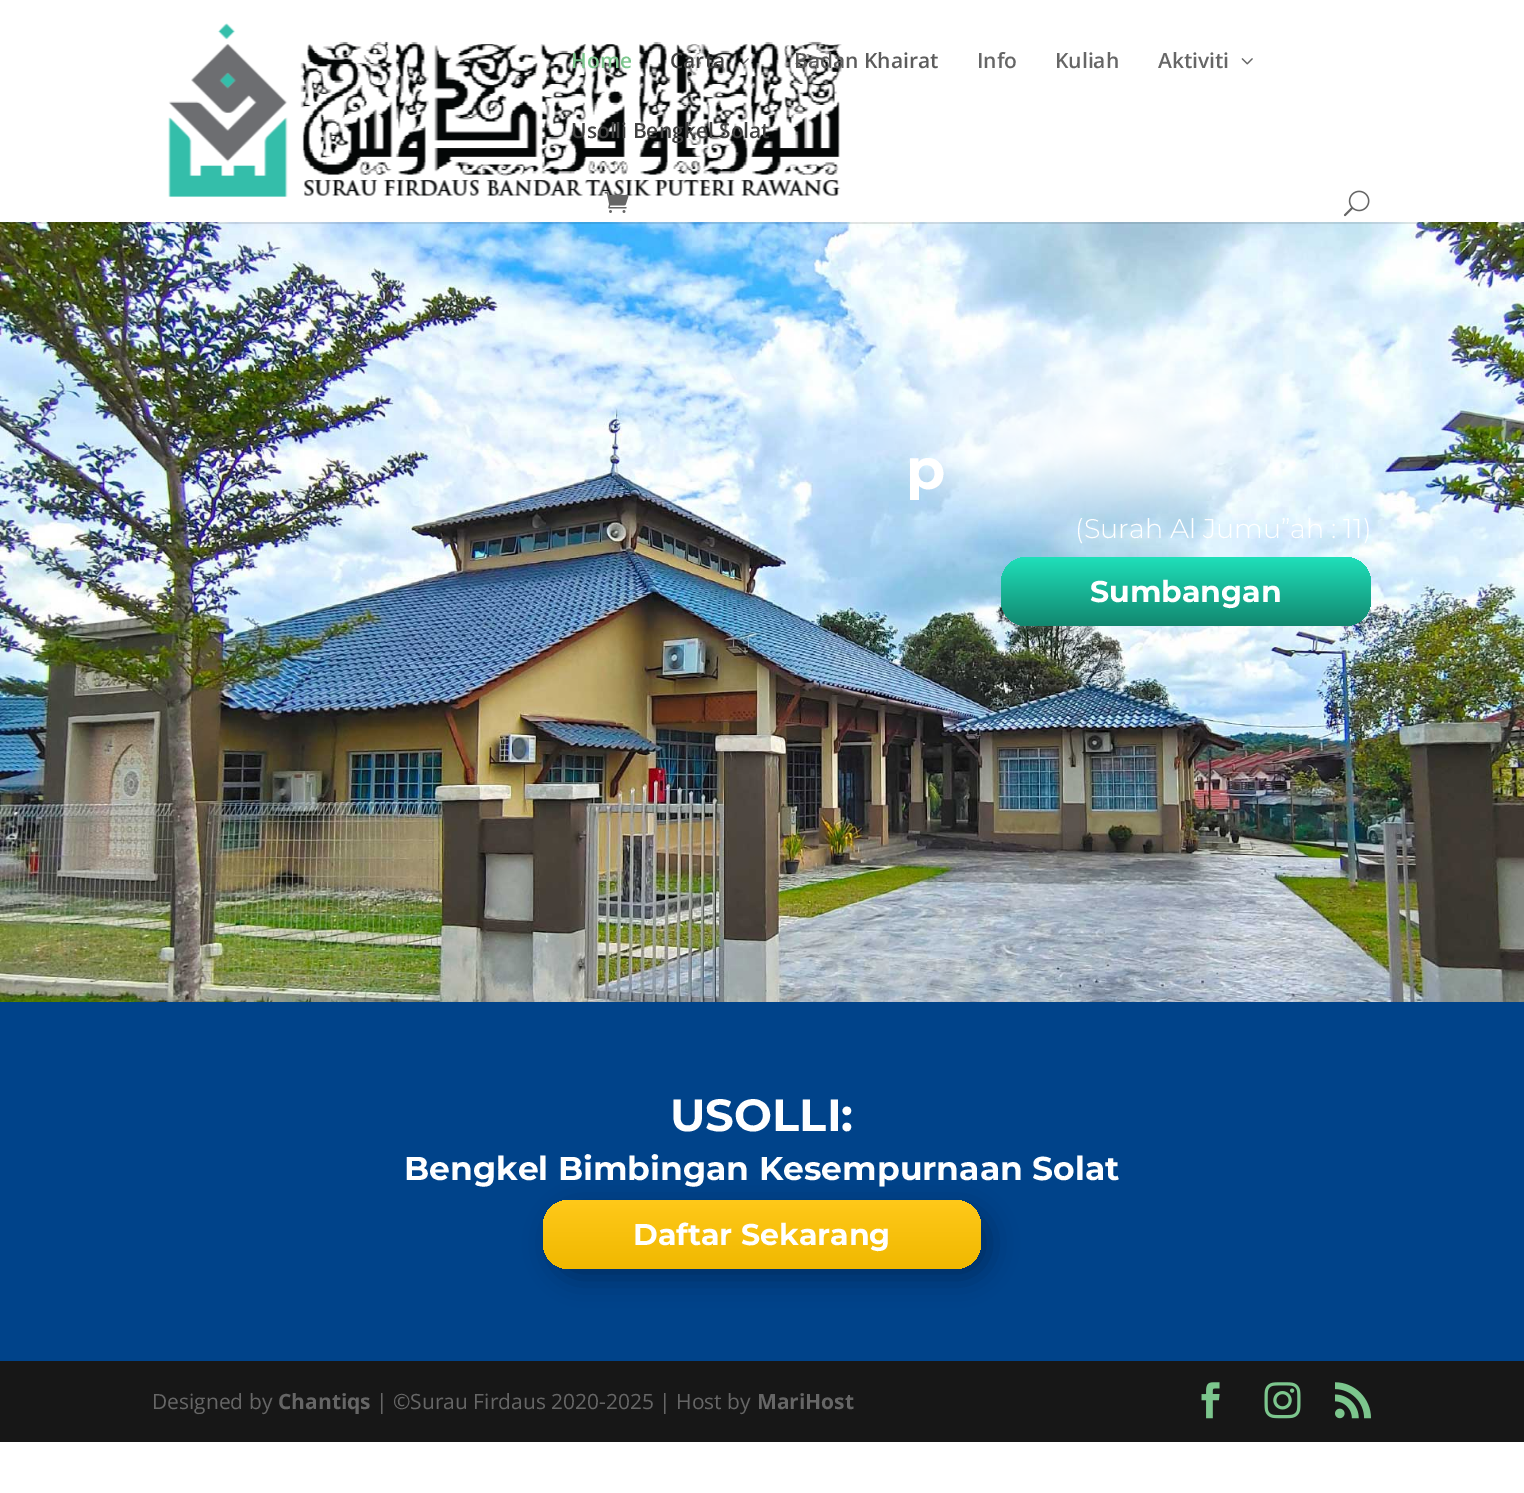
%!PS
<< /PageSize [1524 1493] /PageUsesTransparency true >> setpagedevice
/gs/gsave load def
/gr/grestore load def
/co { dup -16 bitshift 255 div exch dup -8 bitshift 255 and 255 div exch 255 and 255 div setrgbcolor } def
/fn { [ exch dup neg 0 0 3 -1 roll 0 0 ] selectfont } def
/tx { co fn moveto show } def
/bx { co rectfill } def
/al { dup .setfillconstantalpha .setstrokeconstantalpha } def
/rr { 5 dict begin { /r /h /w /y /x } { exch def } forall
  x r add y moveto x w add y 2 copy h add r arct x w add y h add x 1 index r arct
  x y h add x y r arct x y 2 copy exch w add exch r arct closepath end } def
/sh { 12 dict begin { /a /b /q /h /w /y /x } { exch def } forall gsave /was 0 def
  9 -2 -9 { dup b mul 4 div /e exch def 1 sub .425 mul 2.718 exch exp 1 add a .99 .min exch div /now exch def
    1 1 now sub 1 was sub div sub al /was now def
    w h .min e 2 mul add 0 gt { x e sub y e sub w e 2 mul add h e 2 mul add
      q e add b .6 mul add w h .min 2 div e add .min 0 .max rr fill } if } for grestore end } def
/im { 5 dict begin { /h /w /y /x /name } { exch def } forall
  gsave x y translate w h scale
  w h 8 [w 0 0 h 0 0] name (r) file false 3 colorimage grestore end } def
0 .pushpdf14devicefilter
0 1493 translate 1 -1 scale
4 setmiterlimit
0 0 1524 1493 16#FFFFFF bx
(media/6.raw) 0 222 1524 780 im
0.1 al
0 222 1524 2 16#000000 bx
1 al
(media/1.raw) 168 23 674 174 im
(media/2.raw) 740 58 9 7 im
(media/3.raw) 1241 58 12 7 im
(media/4.raw) 604 192 25 21 im
(media/5.raw) 1343 190 27 27 im
gs 1001 557 370 69 26 rr clip newpath
<< /ShadingType 2 /ColorSpace /DeviceRGB /Coords [1186 557 1186 626] /Extend [true true] /Function << /FunctionType 2 /Domain [0 1] /C0 [.122 .878 .729] /C1 [.071 .529 .435] /N 1 >> >> shfill gr
0 1002 1524 359 16#00438A bx
16#000000 co
552 1209 438 69 26 13.5 .3 sh
gs 543 1200 438 69 26 rr clip newpath
<< /ShadingType 2 /ColorSpace /DeviceRGB /Coords [762 1200 762 1269] /Extend [true true] /Function << /FunctionType 2 /Domain [0 1] /C0 [1 .788 .102] /C1 [.941 .722 0] /N 1 >> >> shfill gr
0 1361 1524 81 16#171717 bx
(media/7.raw) 1201 1382 19 37 im
(media/8.raw) 1264 1382 37 37 im
(media/9.raw) 1335 1382 36 37 im
(Home) 571 68 /OpenSans-SemiBold 21 16#7CC68D tx
(Carta) 670 68 /OpenSans-SemiBold 21 16#434343 tx
(Badan Khairat) 794 68 /OpenSans-SemiBold 21 16#5C5C5C tx
(Info) 977 68 /OpenSans-SemiBold 21 16#666666 tx
(Kuliah) 1055 68 /OpenSans-SemiBold 21 16#666666 tx
(Aktiviti) 1158 68 /OpenSans-SemiBold 21 16#666666 tx
(Usolli Bengkel Solat) 571 138 /OpenSans-SemiBold 21 16#434343 tx
(p) 906 489 /Montserrat-Bold 57 16#FFFFFF tx
(\(Surah Al Jumu”ah : 11\)) 1075 538 /Montserrat-Light 27 16#FFFFFF tx
(Sumbangan) 1090 602 /Montserrat-Bold 30 16#FFFFFF tx
(USOLLI:) 670 1131 /Montserrat-Bold 45 16#FFFFFF tx
(Bengkel Bimbingan Kesempurnaan Solat) 404 1180 /Montserrat-Bold 33 16#FFFFFF tx
(Daftar Sekarang) 633 1245 /Montserrat-Bold 30 16#FFFFFF tx
(Designed by) 152 1409 /OpenSans-Regular 21 16#666666 tx
(Chantiqs) 278 1409 /OpenSans-Bold 21 16#666666 tx
(| ©Surau Firdaus 2020-2025 | Host by) 376 1409 /OpenSans-Regular 21 16#666666 tx
(MariHost) 757 1409 /OpenSans-Bold 21 16#666666 tx
.poppdf14devicefilter showpage
